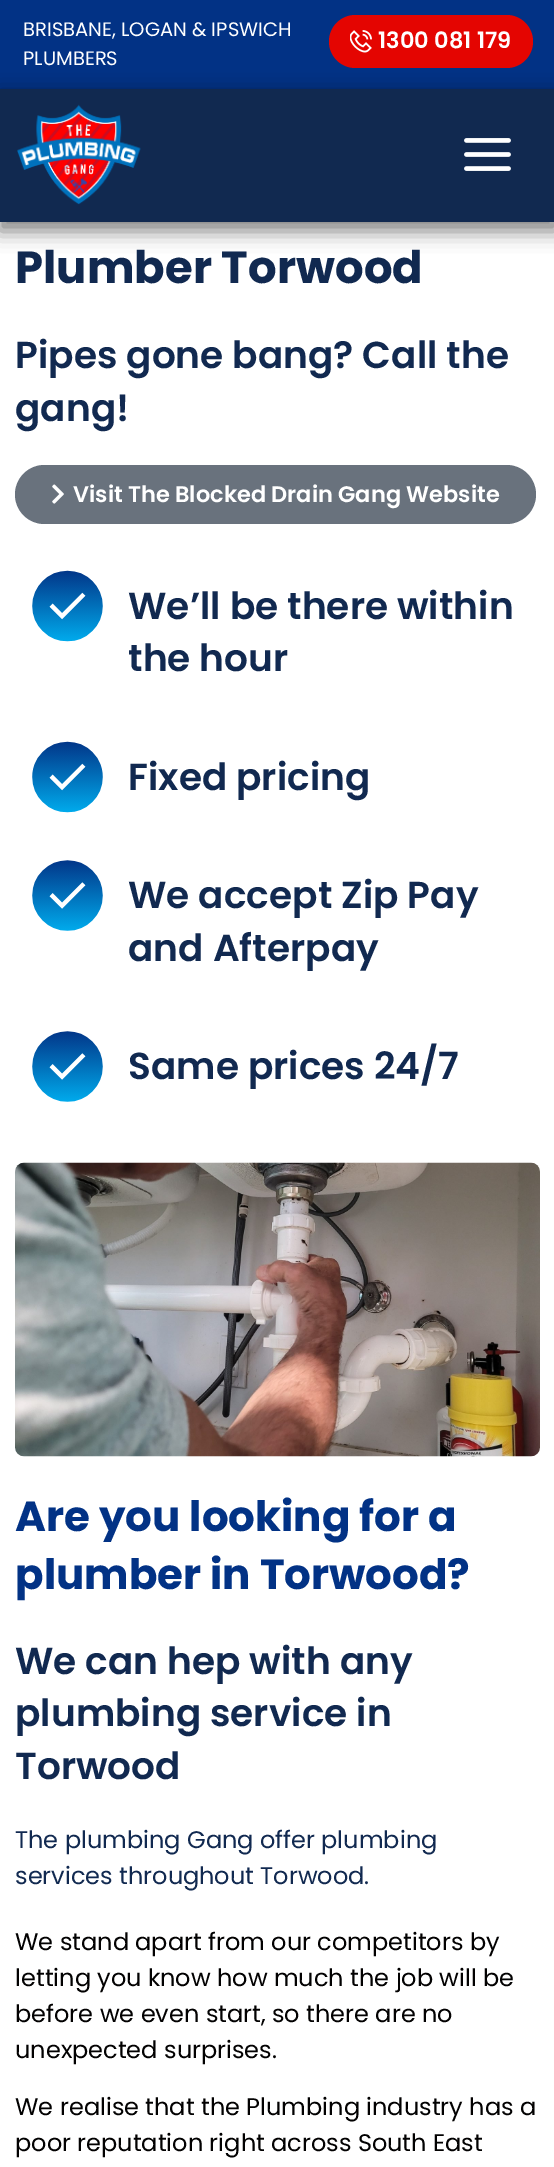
%!PS
<< /PageSize [554 2167] /PageUsesTransparency true >> setpagedevice
/fl/fill load def
/co { dup -16 bitshift 255 div exch dup -8 bitshift 255 and 255 div exch 255 and 255 div setrgbcolor } def
/fn { [ exch dup neg 0 0 3 -1 roll 0 0 ] selectfont } def
/tx { co fn moveto show } def
/bx { co rectfill } def
/al { dup .setfillconstantalpha .setstrokeconstantalpha } def
/rr { 5 dict begin { /r /h /w /y /x } { exch def } forall
  x r add y moveto x w add y 2 copy h add r arct x w add y h add x 1 index r arct
  x y h add x y r arct x y 2 copy exch w add exch r arct closepath end } def
/sh { 12 dict begin { /a /b /q /h /w /y /x } { exch def } forall gsave /was 0 def
  9 -2 -9 { dup b mul 4 div /e exch def 1 sub .425 mul 2.718 exch exp 1 add a .99 .min exch div /now exch def
    1 1 now sub 1 was sub div sub al /was now def
    w h .min e 2 mul add 0 gt { x e sub y e sub w e 2 mul add h e 2 mul add
      q e add b .6 mul add w h .min 2 div e add .min 0 .max rr fill } if } for grestore end } def
/im { 5 dict begin { /h /w /y /x /name } { exch def } forall
  gsave x y translate w h scale
  w h 8 [w 0 0 h 0 0] name (r) file false 3 colorimage grestore end } def
0 .pushpdf14devicefilter
0 2167 translate 1 -1 scale
4 setmiterlimit
0 0 554 2167 16#FFFFFF bx
0 0 554 89 16#023285 bx
16#E40501 co
329 15 204 53 26.5 rr fl
(media/1.raw) 350 30 22 23 im
16#000000 co
-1 95 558 136 0 10 .5 sh
0 89 554 133 16#112950 bx
(media/2.raw) 17 104 124 101 im
(media/3.raw) 464 138 47 33 im
16#69727D co
15 465 521 59 29.5 rr fl
(media/4.raw) 52 484 12 20 im
(media/5.raw) 32 570 71 72 im
(media/6.raw) 32 741 71 72 im
(media/7.raw) 32 860 71 71 im
(media/8.raw) 32 1031 71 71 im
(media/9.raw) 15 1162 525 295 im
(BRISBANE, LOGAN & IPSWICH) 23 36 /Poppins-Regular 19.5 16#FFFFFF tx
(PLUMBERS) 23 65 /Poppins-Regular 19.5 16#FFFFFF tx
(1300 081 179) 378 48 /Poppins-SemiBold 22.5 16#FFFFFF tx
(Plumber Torwood) 15 283 /Poppins-Bold 45 16#112950 tx
(Pipes gone bang? Call the) 15 368 /Poppins-SemiBold 37.5 16#112950 tx
(gang!) 15 421 /Poppins-SemiBold 37.5 16#112950 tx
(Visit The Blocked Drain Gang Website) 73 502 /Poppins-SemiBold 22.5 16#FFFFFF tx
(We’ll be there within) 128 619 /Poppins-SemiBold 37.5 16#112950 tx
(the hour) 128 671 /Poppins-SemiBold 37.5 16#112950 tx
(Fixed pricing) 128 790 /Poppins-SemiBold 37.5 16#112950 tx
(We accept Zip Pay) 128 908 /Poppins-SemiBold 37.5 16#112950 tx
(and Afterpay) 128 961 /Poppins-SemiBold 37.5 16#112950 tx
(Same prices 24/7) 128 1079 /Poppins-SemiBold 37.5 16#112950 tx
(Are you looking for a) 15 1531 /Poppins-Bold 42 16#023285 tx
(plumber in Torwood?) 15 1589 /Poppins-Bold 42 16#023285 tx
(We can hep with any) 15 1674 /Poppins-SemiBold 37.5 16#112950 tx
(plumbing service in) 15 1726 /Poppins-SemiBold 37.5 16#112950 tx
(Torwood) 15 1779 /Poppins-SemiBold 37.5 16#112950 tx
(The plumbing Gang offer plumbing) 15 1848 /Poppins-Regular 24 16#112950 tx
(services throughout Torwood.) 15 1884 /Poppins-Regular 24 16#112950 tx
(We stand apart from our competitors by) 15 1950 /Poppins-Regular 24 16#020101 tx
(letting you know how much the job will be) 15 1986 /Poppins-Regular 24 16#020101 tx
(before we even start, so there are no) 15 2022 /Poppins-Regular 24 16#020101 tx
(unexpected surprises.) 15 2058 /Poppins-Regular 24 16#020101 tx
(We realise that the Plumbing industry has a) 15 2115 /Poppins-Regular 24 16#020101 tx
(poor reputation right across South East) 15 2151 /Poppins-Regular 24 16#020101 tx
.poppdf14devicefilter showpage
